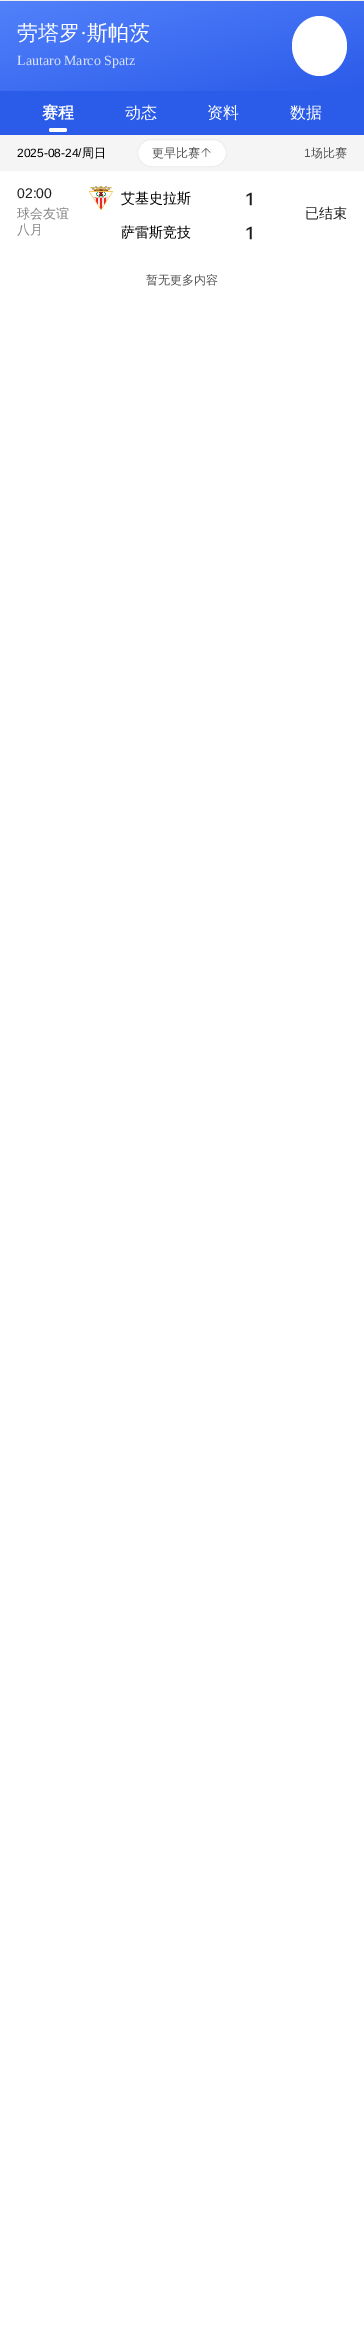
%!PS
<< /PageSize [364 2352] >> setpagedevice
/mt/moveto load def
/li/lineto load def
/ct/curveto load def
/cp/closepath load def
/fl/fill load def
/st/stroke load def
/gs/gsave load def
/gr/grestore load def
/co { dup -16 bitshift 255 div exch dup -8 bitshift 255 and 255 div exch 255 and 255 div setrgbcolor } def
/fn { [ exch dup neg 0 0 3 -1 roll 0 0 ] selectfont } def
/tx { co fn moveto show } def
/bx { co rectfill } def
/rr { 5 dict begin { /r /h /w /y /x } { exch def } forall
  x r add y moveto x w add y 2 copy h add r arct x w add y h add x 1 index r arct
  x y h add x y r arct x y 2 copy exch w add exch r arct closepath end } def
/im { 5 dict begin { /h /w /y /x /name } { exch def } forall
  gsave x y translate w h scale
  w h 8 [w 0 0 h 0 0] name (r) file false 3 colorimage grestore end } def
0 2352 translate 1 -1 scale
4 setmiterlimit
0 0 364 2352 16#FFFFFF bx
0 0 364 1 16#EEEEEE bx
gs 0 1 mt 364 1 li 364 91 li 0 91 li cp clip newpath
<< /ShadingType 2 /ColorSpace /DeviceRGB /Coords [161 -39 203 131] /Extend [true true] /Function << /FunctionType 2 /Domain [0 1] /C0 [.322 .506 .984] /C1 [.169 .357 .914] /N 1 >> >> shfill gr
16#FFFFFF co
319.5 16 mt 334.5 16 347 29.5 347 46 ct 347 62.5 334.5 76 319.5 76 ct 304.5 76 292 62.5 292 46 ct 292 29.5 304.5 16 319.5 16 ct cp fl
0 91 364 44 16#2B5BE9 bx
16#FFFFFF co
49 128 18 4 2 rr fl
0 135 364 36 16#F5F5F5 bx
16#FFFFFF co
137.5 139.5 89 27 13.5 rr gs fl gr
16#EEEEEE co
st
(media/1.raw) 201 148 10 9 im
(media/2.raw) 89 186 24 24 im
gs
17 23 275 21 rectclip
(劳塔罗) 17 40 /WenQuanYiZenHei-Medium 21 16#FFFFFF tx
gr
(·) 80 40 /LiberationSerif-Regular 21 16#FFFFFF tx
gs
17 23 275 21 rectclip
(斯帕茨) 87 40 /WenQuanYiZenHei-Medium 21 16#FFFFFF tx
gr
(Lautaro Marco Spatz) 17 65 /LiberationSerif-Regular 14 16#D9E2FD tx
(赛程) 42 118 /WenQuanYiZenHei-Bold 16 16#FFFFFF tx
(动态) 125 118 /WenQuanYiZenHei-Medium 16 16#FFFFFF tx
(资料) 207 118 /WenQuanYiZenHei-Medium 16 16#FFFFFF tx
(数据) 290 118 /WenQuanYiZenHei-Medium 16 16#FFFFFF tx
(2025-08-24/) 17 157 /LiberationSans-Regular 12 16#000000 tx
(周日) 82 157 /WenQuanYiZenHei-Medium 12 16#000000 tx
(更早比赛) 152 157 /WenQuanYiZenHei-Medium 12 16#555555 tx
(1) 304 157 /LiberationSans-Regular 12 16#555555 tx
(场比赛) 311 157 /WenQuanYiZenHei-Medium 12 16#555555 tx
(02:00) 17 198 /LiberationSans-Regular 14 16#1F1F1F tx
(球会友谊) 17 218 /WenQuanYiZenHei-Medium 13 16#858585 tx
(八月) 17 234 /WenQuanYiZenHei-Medium 13 16#858585 tx
(艾基史拉斯) 121 203 /WenQuanYiZenHei-Medium 14 16#000000 tx
(1) 245 204 /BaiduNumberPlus-Medium 16 16#1F1F1F tx
(萨雷斯竞技) 121 237 /WenQuanYiZenHei-Medium 14 16#000000 tx
(1) 245 238 /BaiduNumberPlus-Medium 16 16#1F1F1F tx
(已结束) 305 218 /WenQuanYiZenHei-Medium 14 16#1F1F1F tx
(暂无更多内容) 146 284 /WenQuanYiZenHei-Medium 12 16#555555 tx
showpage
